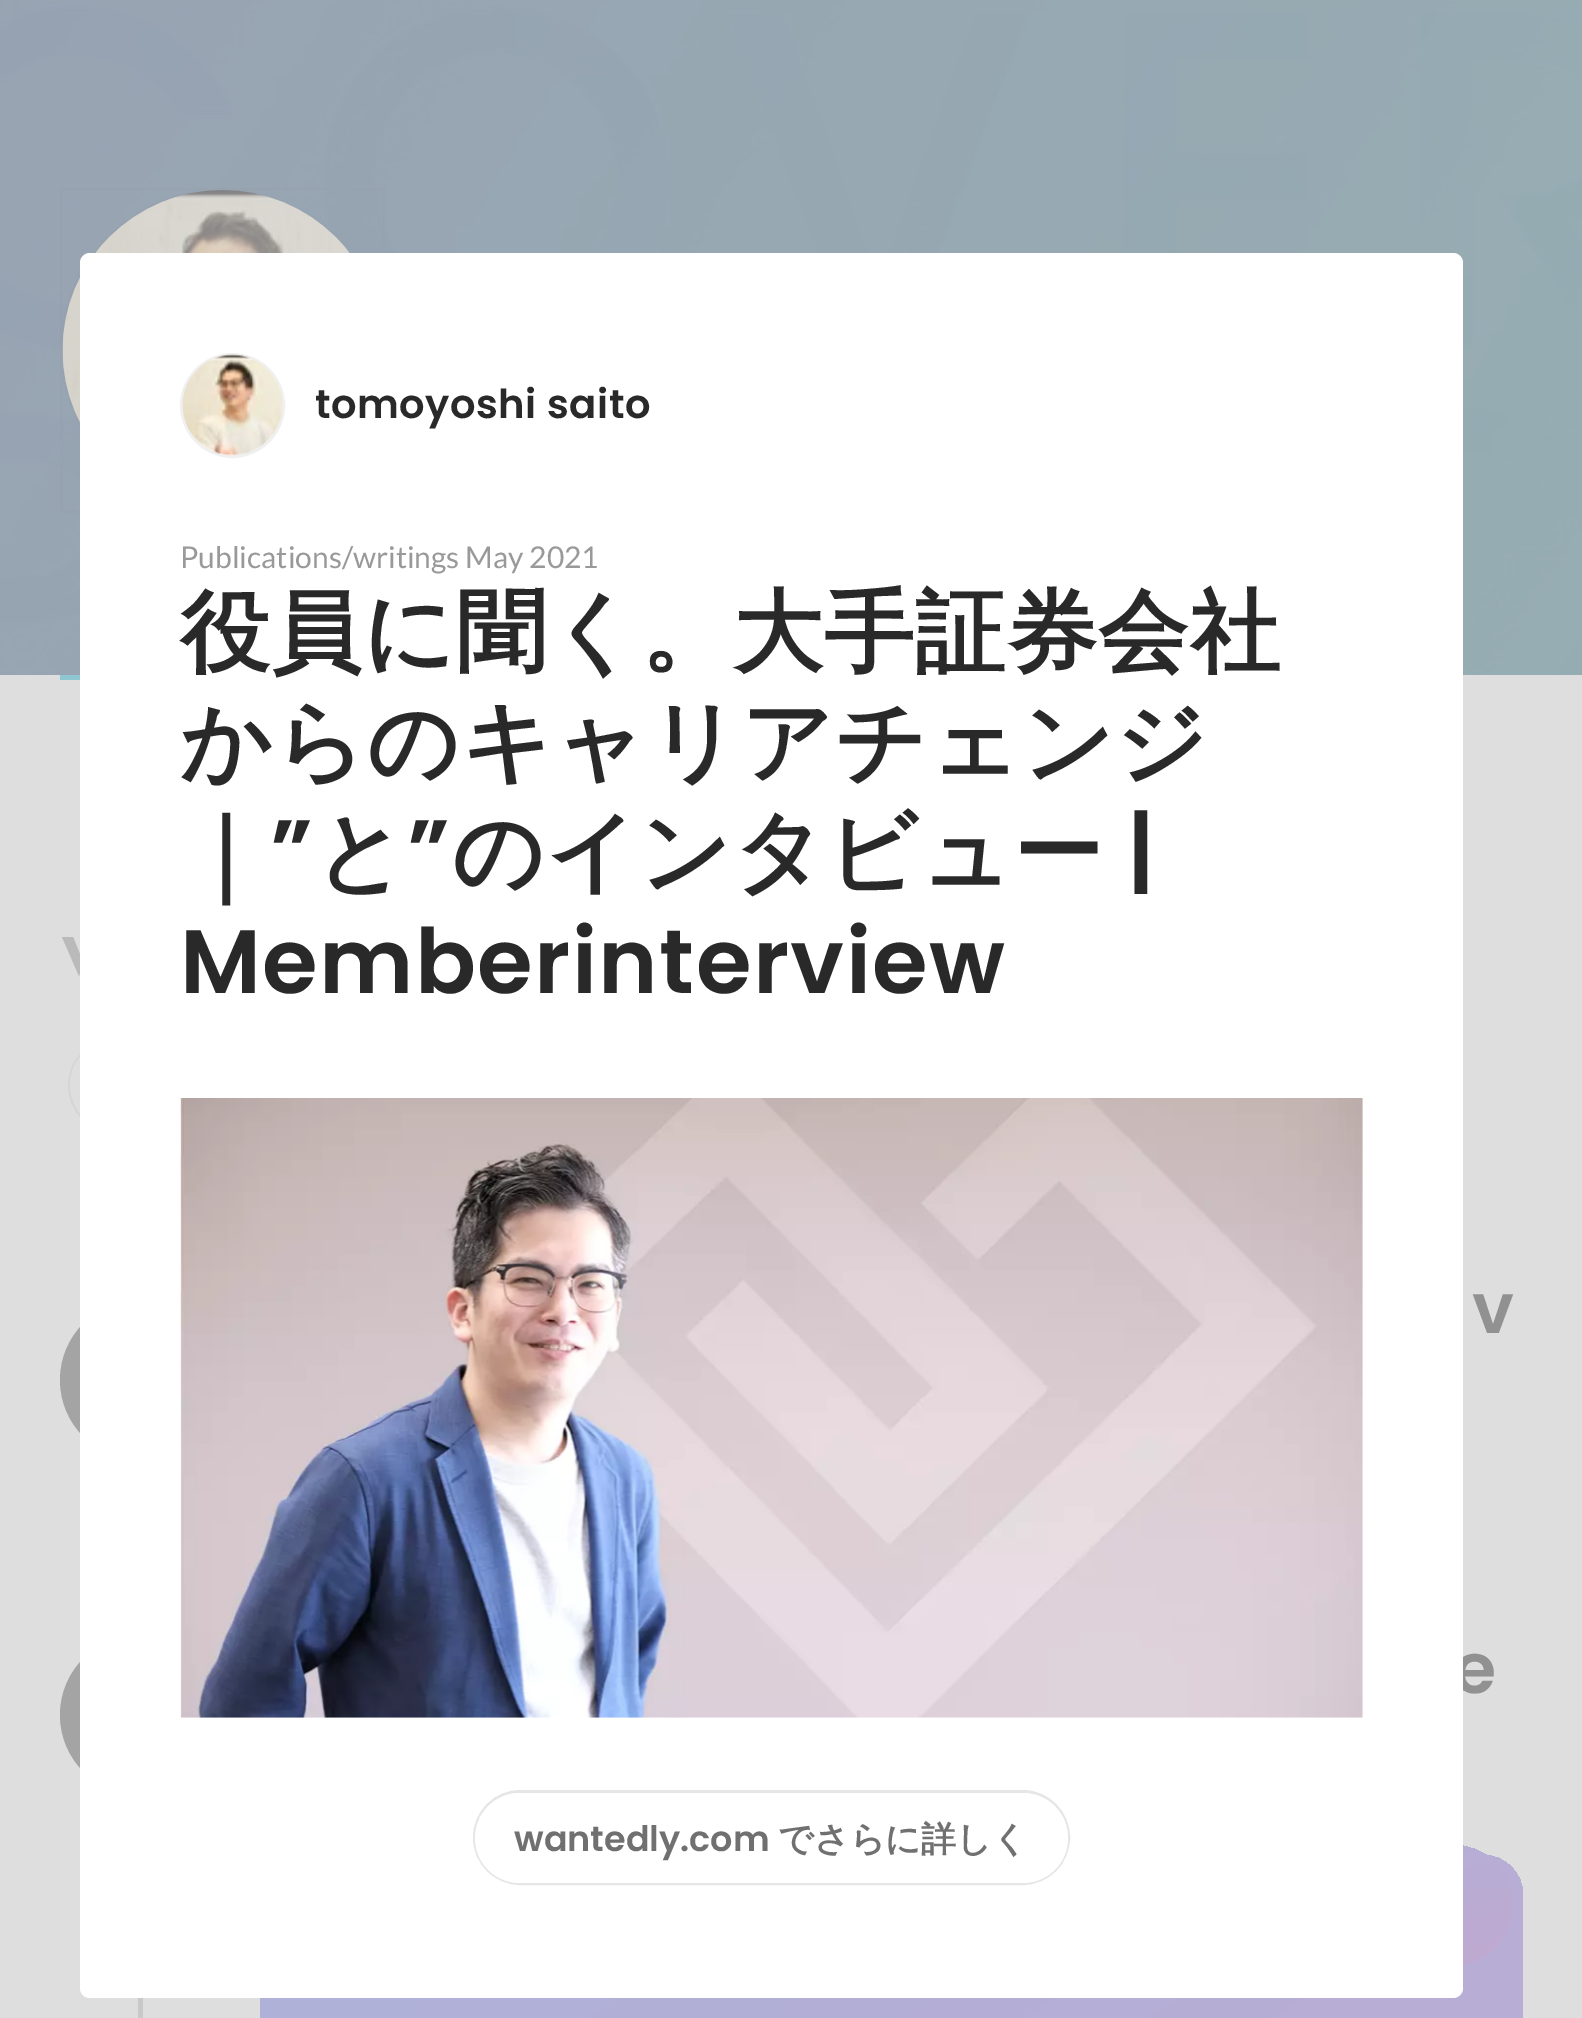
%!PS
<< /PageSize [1582 2018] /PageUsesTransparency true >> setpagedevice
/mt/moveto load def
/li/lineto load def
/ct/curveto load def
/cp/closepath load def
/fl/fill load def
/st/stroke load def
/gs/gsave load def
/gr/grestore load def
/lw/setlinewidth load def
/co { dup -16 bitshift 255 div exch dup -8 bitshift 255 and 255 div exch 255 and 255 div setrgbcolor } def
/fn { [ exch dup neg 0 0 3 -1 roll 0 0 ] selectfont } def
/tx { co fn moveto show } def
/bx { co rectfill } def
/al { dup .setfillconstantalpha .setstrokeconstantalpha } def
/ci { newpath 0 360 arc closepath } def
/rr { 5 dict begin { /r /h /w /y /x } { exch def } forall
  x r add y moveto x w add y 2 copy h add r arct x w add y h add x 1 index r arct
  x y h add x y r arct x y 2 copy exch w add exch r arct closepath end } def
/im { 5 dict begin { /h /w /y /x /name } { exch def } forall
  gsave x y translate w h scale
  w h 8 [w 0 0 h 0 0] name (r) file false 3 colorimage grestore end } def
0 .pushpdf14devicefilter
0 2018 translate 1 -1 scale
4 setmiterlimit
0 0 1582 2018 16#DEDEDE bx
(media/1.raw) 0 0 1582 675 im
0.06 al
16#838383 co
3 lw
61.5 189.5 322 322 rectstroke
1 al
(media/2.raw) 62 190 288 233 im
60 675 20 5 16#8EC7D1 bx
gs 260 1855 1263 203 40 rr clip newpath
<< /ShadingType 2 /ColorSpace /DeviceRGB /Coords [478 1703 1304 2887] /Extend [true true] /Function << /FunctionType 2 /Domain [0 1] /C0 [.682 .698 .855] /C1 [.753 .663 .82] /N 1 >> >> shfill gr
gs 833 1845 680 120 60 rr clip newpath
<< /ShadingType 2 /ColorSpace /DeviceRGB /Coords [1152 1789 1193 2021] /Extend [true true] /Function << /FunctionType 2 /Domain [0 1] /C0 [.682 .698 .855] /C1 [.753 .663 .82] /N 1 >> >> shfill gr
16#BABABA co
111 950 mt 120 950 120 937 111 937 ct 103 937 103 950 111 950 ct cp 84 962 mt 82 961 75 941 73 937 ct 62 937 li 79 976 li cp 100 953 mt 104 961 li 105 963 105 961 104 965 ct 99 975 li 99 976 li 83 937 li 94 937 li cp fl
16#D5D5D5 co
69.5 1039.5 394 92 46 rr st
16#DEDEDE co
70 1040 393 90 45 rr fl
16#A4A4A4 co
140 1380 80 ci fl
140 1715 80 ci fl
138 1998 5 20 16#C8C8C8 bx
/Poppins-SemiBold 70 fn
16#919191 co
1472 1333 mt 1 0 (v) ashow
1453 1693 mt 1 0 (e) ashow
16#FFFFFF co
80 253 1383 1745 10 rr fl
16#E6E6E6 co
474.5 1791.5 594 92 46 rr st
16#FFFFFF co
475 1793 593 90 45 rr fl
(でさらに詳しく) 778 1851 /WenQuanYiZenHei-Bold 35 16#707070 tx
(wantedly.com) 514 1851 /Poppins-SemiBold 35 16#707070 tx
16#F0F0F0 co
232.5 405.5 51 ci st
(media/3.raw) 182 354 101 102 im
/Poppins-SemiBold 40 fn
16#292929 co
315 418 mt .5 0 (tomoyoshi saito) ashow
(media/4.raw) 180 1098 1183 620 im
/Poppins-SemiBold 90 fn
180 993 mt 1.4 0 (Memberinterview) ashow
1127 883 mt 1.4 0 (|) ashow
/WenQuanYiZenHei-Bold 90 fn
452 883 mt 1.4 0 (のインタビュー) ashow
/Poppins-SemiBold 90 fn
407 883 mt 1.4 0 (”) ashow
/WenQuanYiZenHei-Bold 90 fn
314 883 mt 1.4 0 (と) ashow
/Poppins-SemiBold 90 fn
270 883 mt 1.4 0 (”) ashow
/WenQuanYiZenHei-Bold 90 fn
180 883 mt 1.4 0 (｜) ashow
180 773 mt 1.4 0 (からのキャリアチェンジ) ashow
180 663 mt 1.4 0 (役員に聞く。大手証券会社) ashow
(Publications/writings May 2021) 180 568 /Lato-Regular 30 16#999999 tx
.poppdf14devicefilter showpage
